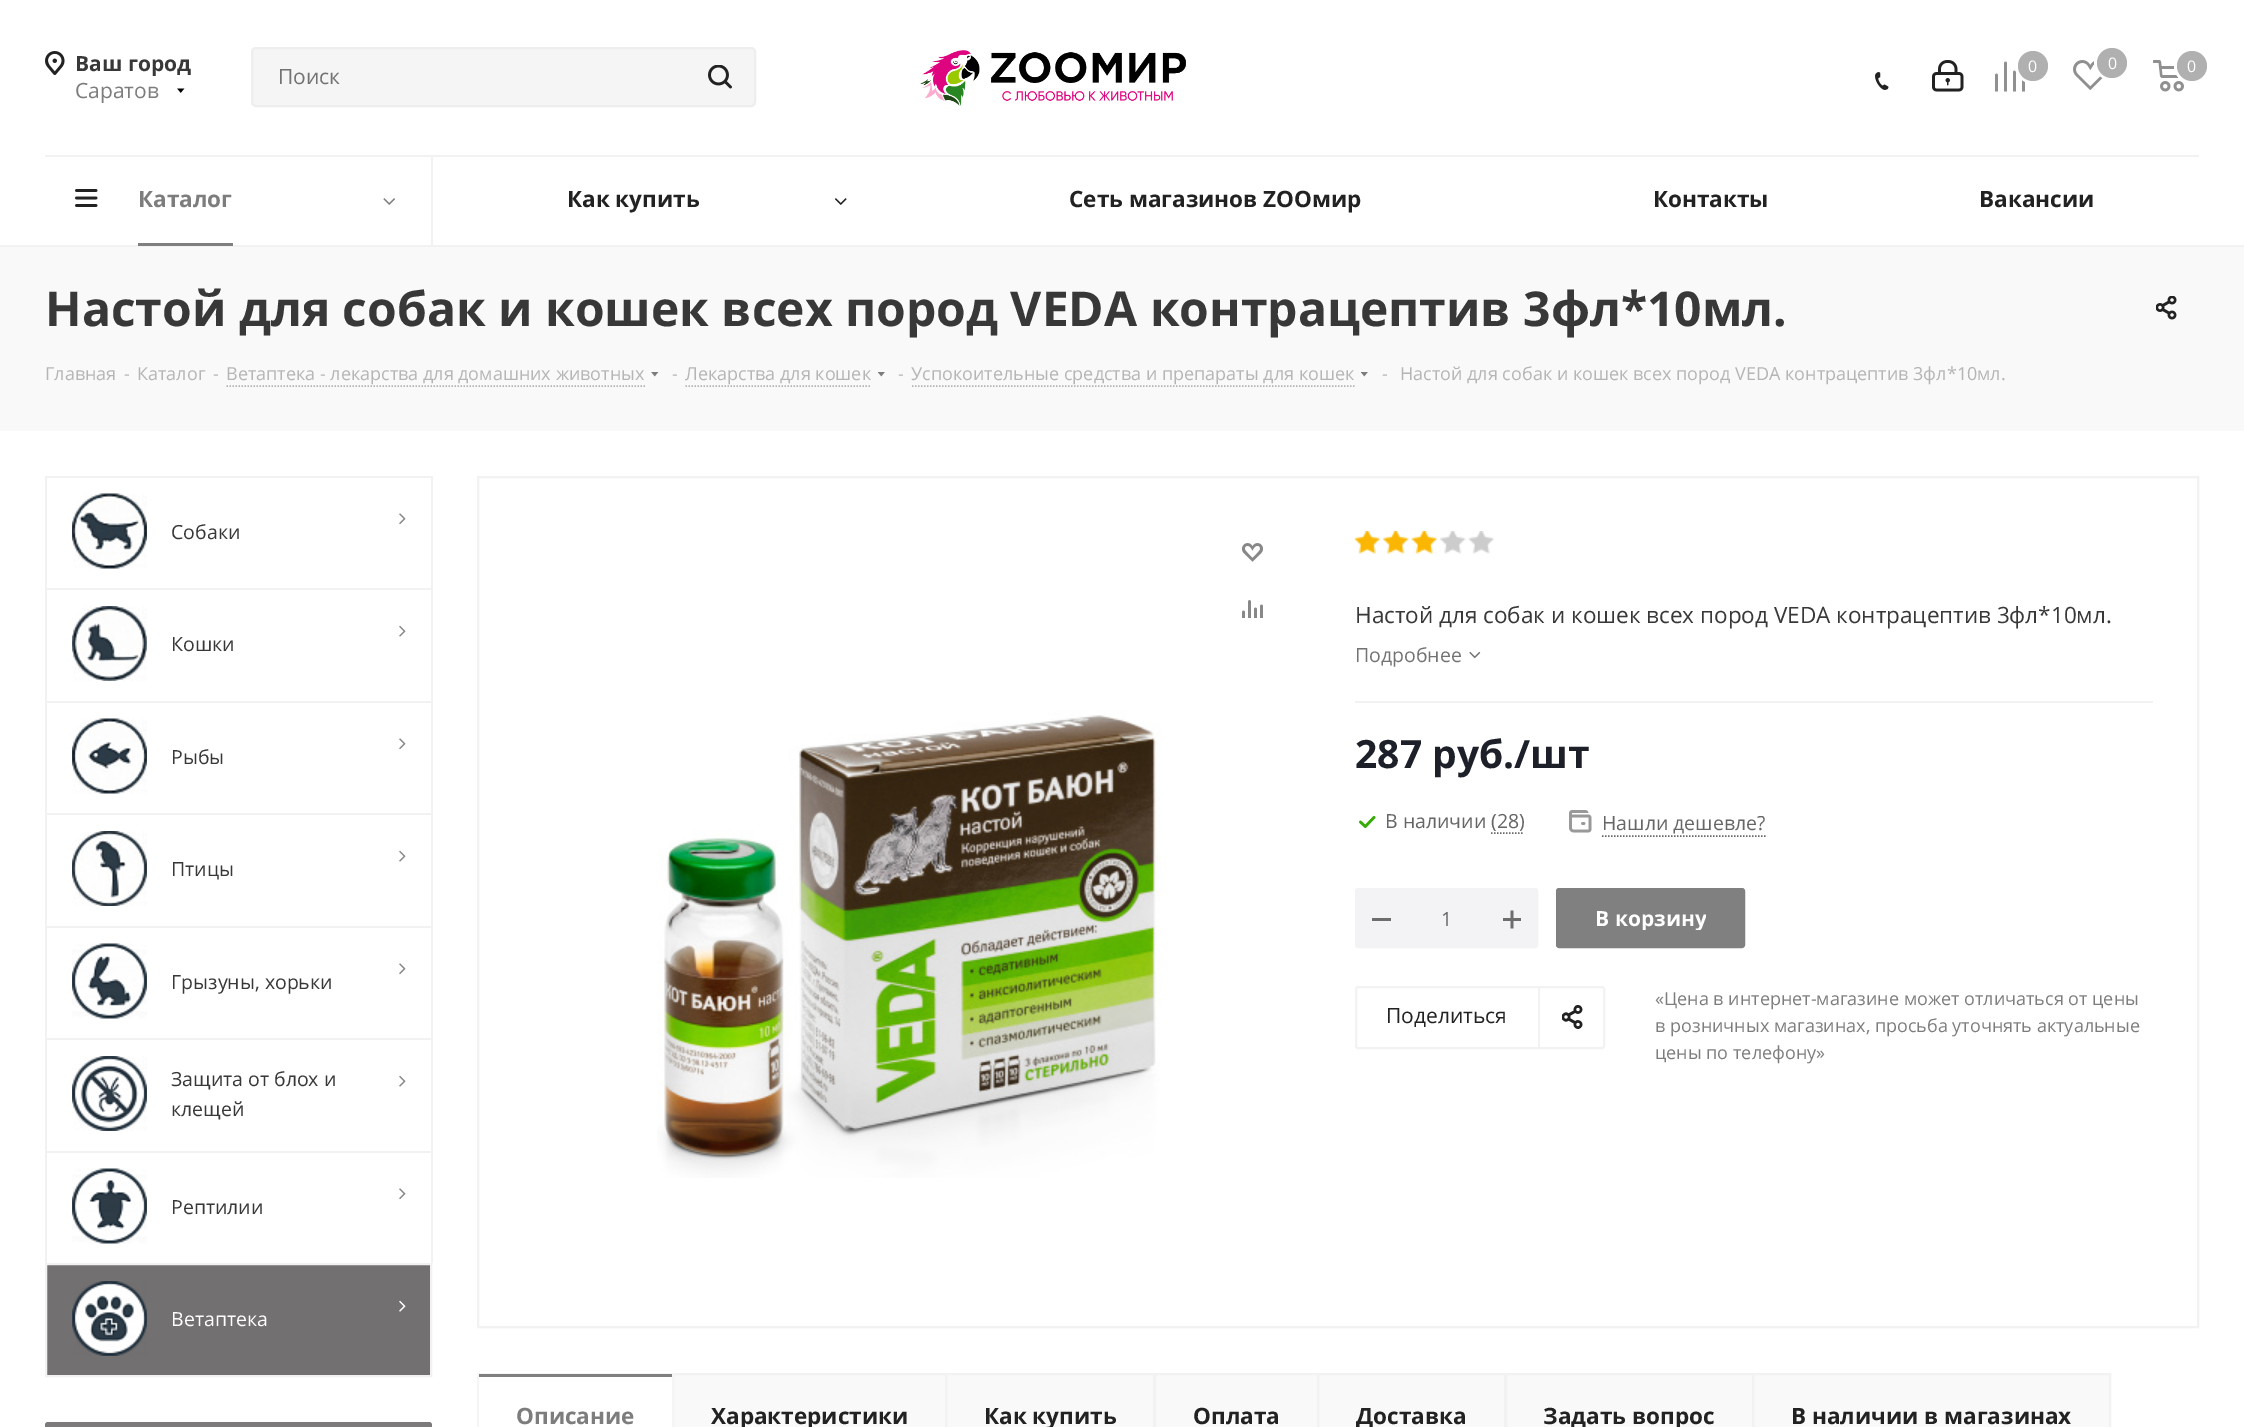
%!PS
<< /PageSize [2244 1427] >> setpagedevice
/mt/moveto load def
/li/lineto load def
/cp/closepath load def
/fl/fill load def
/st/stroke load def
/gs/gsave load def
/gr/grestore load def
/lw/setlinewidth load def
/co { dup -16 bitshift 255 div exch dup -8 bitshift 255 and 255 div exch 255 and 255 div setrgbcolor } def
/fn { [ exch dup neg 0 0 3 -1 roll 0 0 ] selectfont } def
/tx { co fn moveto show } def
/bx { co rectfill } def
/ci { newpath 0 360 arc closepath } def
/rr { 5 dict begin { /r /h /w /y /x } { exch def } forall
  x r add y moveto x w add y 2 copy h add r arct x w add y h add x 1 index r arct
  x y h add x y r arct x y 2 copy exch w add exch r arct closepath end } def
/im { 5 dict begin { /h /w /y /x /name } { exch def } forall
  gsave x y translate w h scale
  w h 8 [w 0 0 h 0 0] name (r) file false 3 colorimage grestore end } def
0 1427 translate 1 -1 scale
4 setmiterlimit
0 0 2244 1427 16#FFFFFF bx
(media/1.raw) 45 51 20 24 im
(media/2.raw) 177 88 8 5 im
(media/3.raw) 920 50 266 56 im
(media/4.raw) 1875 72 14 18 im
(media/5.raw) 1932 60 32 32 im
(media/6.raw) 1995 61 30 31 im
3 lw
2033 66 16.5 ci st
16#B0B0B0 co
2033 66 15 ci fl
(media/7.raw) 2073 60 32 30 im
16#FFFFFF co
2112 63 16.5 ci st
16#B0B0B0 co
2112 63 15 ci fl
(media/8.raw) 2153 60 31 32 im
16#FFFFFF co
2192 66 16.5 ci st
2192 66 16.5 ci st
16#B0B0B0 co
2192 66 15 ci fl
16#F5F5F5 co
252 48 503 58 4 rr gs fl gr
16#EEEEEE co
2 lw
st
(media/9.raw) 708 65 24 24 im
0 245 2244 2 16#F2F2F2 bx
45 155 2154 2 16#F2F2F2 bx
431 156 2 89 16#F2F2F2 bx
(media/10.raw) 75 189 23 18 im
138 243 95 3 16#808080 bx
(media/11.raw) 383 198 12 7 im
(media/12.raw) 835 198 12 7 im
0 247 2244 184 16#F9F9F9 bx
(media/13.raw) 2156 296 21 24 im
16#B4B4B4 co
1.5 lw
[1.5 1.5] 0 setdash
226.5 386 mt 645 386 li st
(media/14.raw) 651 372 8 5 im
685.5 386 mt 871.5 386 li st
(media/15.raw) 878 372 7 5 im
912 386 mt 1354.5 386 li st
(media/15.raw) 1361 372 7 5 im
45 476 387 2 16#F2F2F2 bx
431 476 2 112 16#F2F2F2 bx
45 476 2 112 16#F2F2F2 bx
(media/16.raw) 72 493 75 76 im
(media/17.raw) 399 513 7 12 im
45 588 387 2 16#F2F2F2 bx
431 588 2 113 16#F2F2F2 bx
45 588 2 113 16#F2F2F2 bx
(media/18.raw) 72 606 75 75 im
(media/19.raw) 399 625 7 12 im
45 701 387 2 16#F2F2F2 bx
431 701 2 112 16#F2F2F2 bx
45 701 2 112 16#F2F2F2 bx
(media/20.raw) 72 718 75 76 im
(media/17.raw) 399 738 7 12 im
45 813 387 2 16#F2F2F2 bx
431 813 2 113 16#F2F2F2 bx
45 813 2 113 16#F2F2F2 bx
(media/21.raw) 72 831 75 75 im
(media/19.raw) 399 850 7 12 im
45 926 387 2 16#F2F2F2 bx
431 926 2 112 16#F2F2F2 bx
45 926 2 112 16#F2F2F2 bx
(media/22.raw) 72 943 75 76 im
(media/17.raw) 399 963 7 12 im
45 1038 387 2 16#F2F2F2 bx
431 1038 2 113 16#F2F2F2 bx
45 1038 2 113 16#F2F2F2 bx
(media/23.raw) 72 1056 75 75 im
(media/19.raw) 399 1075 7 12 im
45 1151 387 2 16#F2F2F2 bx
431 1151 2 112 16#F2F2F2 bx
45 1151 2 112 16#F2F2F2 bx
(media/24.raw) 72 1168 75 76 im
(media/17.raw) 399 1188 7 12 im
16#727070 co
46 1264 mt 431 1264 li 431 1376 li 46 1376 li cp gs fl gr
16#F2F2F2 co
2 lw
[] 0 setdash
st
(media/25.raw) 72 1281 75 75 im
(media/26.raw) 399 1300 7 12 im
16#7C7A7A co
45 1422 387 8 3 rr fl
16#F2F2F2 co
478 477 1720 850 rectstroke
(media/27.raw) 1242 543 21 19 im
(media/28.raw) 1242 600 21 18 im
(media/29.raw) 657 710 504 468 im
1355 701 798 2 16#F2F2F2 bx
(media/30.raw) 1354 531 27 23 im
(media/31.raw) 1383 531 26 23 im
(media/32.raw) 1411 531 27 23 im
(media/33.raw) 1440 531 26 23 im
(media/34.raw) 1468 531 26 23 im
(media/35.raw) 1469 652 12 7 im
(media/36.raw) 1359 815 17 13 im
16#666666 co
1.5 lw
[1.5 1.5] 0 setdash
1491 833 mt 1524 833 li st
(media/37.raw) 1569 810 23 23 im
1602 836 mt 1765.5 836 li st
16#F3F3F5 co
1356 889 181 58 2 rr gs fl gr
2 lw
[] 0 setdash
st
1372 918 19 3 16#6D6D6D bx
(media/38.raw) 1503 910 18 19 im
16#808080 co
1557 889 187 58 2 rr gs fl gr
st
1538 986 2 63 16#F2F2F2 bx
(media/39.raw) 1562 1005 21 24 im
1356 987 248 61 2 rr st
16#F9F9FA co
673 1374 mt 946 1374 li 946 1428 li 673 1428 li cp gs fl gr
16#F2F2F2 co
st
477 1373 197 1 16#F5F5F5 bx
672 1373 2 54 16#F5F5F5 bx
477 1373 2 54 16#F5F5F5 bx
479 1374 193 3 16#808080 bx
16#F9F9FA co
946 1374 mt 1154 1374 li 1154 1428 li 946 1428 li cp gs fl gr
16#F2F2F2 co
st
16#F9F9FA co
1155 1374 mt 1318 1374 li 1318 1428 li 1155 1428 li cp gs fl gr
16#F2F2F2 co
st
16#F9F9FA co
1318 1374 mt 1505 1374 li 1505 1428 li 1318 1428 li cp gs fl gr
16#F2F2F2 co
st
16#F9F9FA co
1506 1374 mt 1753 1374 li 1753 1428 li 1506 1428 li cp gs fl gr
16#F2F2F2 co
st
16#F9F9FA co
1753 1374 mt 2110 1374 li 2110 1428 li 1753 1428 li cp gs fl gr
16#F2F2F2 co
st
(Ваш город) 75 71 /OpenSans-Bold 21 16#383838 tx
(Саратов) 75 98 /OpenSans-Regular 21 16#7D7D7D tx
(0) 2028 72 /OpenSans-Regular 16 16#FFFFFF tx
(0) 2108 69 /OpenSans-Regular 16 16#FFFFFF tx
(0) 2187 72 /OpenSans-Regular 16 16#FFFFFF tx
(Поиск) 278 84 /OpenSans-Regular 21 16#747272 tx
(Каталог) 138 207 /OpenSans-Bold 22.5 16#7D7D7D tx
(Как купить) 567 207 /OpenSans-Bold 22.5 16#222222 tx
(Сеть магазинов ZOOмир) 1069 207 /OpenSans-Bold 22.5 16#222222 tx
(Контакты) 1653 207 /OpenSans-Bold 22.5 16#222222 tx
(Вакансии) 1979 207 /OpenSans-Bold 22.5 16#222222 tx
(Настой для собак и кошек всех пород VEDA контрацептив 3фл*10мл.) 45 326 /OpenSans-Bold 48 16#383838 tx
(Главная) 45 380 /OpenSans-Regular 18 16#B6B5B5 tx
(-) 124 380 /OpenSans-Regular 18 16#B6B5B5 tx
(Каталог) 137 380 /OpenSans-Regular 18 16#B6B5B5 tx
(-) 213 380 /OpenSans-Regular 18 16#B6B5B5 tx
(Ветаптека - лекарства для домашних животных) 226 380 /OpenSans-Regular 18 16#B6B5B5 tx
(-) 672 380 /OpenSans-Regular 18 16#B6B5B5 tx
(Лекарства для кошек) 685 380 /OpenSans-Regular 18 16#B6B5B5 tx
(-) 898 380 /OpenSans-Regular 18 16#B6B5B5 tx
(Успокоительные средства и препараты для кошек) 911 380 /OpenSans-Regular 18 16#B6B5B5 tx
(-) 1382 380 /OpenSans-Regular 18 16#B6B5B5 tx
(Настой для собак и кошек всех пород VEDA контрацептив 3фл*10мл.) 1400 380 /OpenSans-Regular 18 16#B6B5B5 tx
(Собаки) 171 539 /OpenSans-Regular 19.5 16#383838 tx
(Кошки) 171 651 /OpenSans-Regular 19.5 16#383838 tx
(Рыбы) 171 764 /OpenSans-Regular 19.5 16#383838 tx
(Птицы) 171 876 /OpenSans-Regular 19.5 16#383838 tx
(Грызуны, хорьки) 171 989 /OpenSans-Regular 19.5 16#383838 tx
(Защита от блох и) 171 1086 /OpenSans-Regular 19.5 16#383838 tx
(клещей) 171 1116 /OpenSans-Regular 19.5 16#383838 tx
(Рептилии) 171 1214 /OpenSans-Regular 19.5 16#383838 tx
(Ветаптека) 171 1326 /OpenSans-Regular 19.5 16#FFFFFF tx
(Настой для собак и кошек всех пород VEDA контрацептив 3фл*10мл.) 1355 623 /OpenSans-Regular 22.5 16#383838 tx
(Подробнее) 1355 662 /OpenSans-Regular 19.5 16#747272 tx
(287 руб./шт) 1355 768 /OpenSans-Bold 39 16#1D2029 tx
(В наличии \(28\)) 1385 828 /OpenSans-Regular 19.5 16#666666 tx
(Нашли дешевле?) 1602 830 /OpenSans-Regular 19.5 16#666666 tx
(1) 1441 926 /OpenSans-Regular 19.5 16#666666 tx
gs
1595 906 111 24 rectclip
(В корзину) 1595 926 /OpenSans-Bold 21 16#FFFFFF tx
gr
(Поделиться) 1386 1023 /OpenSans-Regular 21 16#222222 tx
(«Цена в интернет-магазине может отличаться от цены) 1655 1005 /OpenSans-Regular 18 16#7D7D7D tx
(в розничных магазинах, просьба уточнять актуальные) 1655 1032 /OpenSans-Regular 18 16#7D7D7D tx
(цены по телефону») 1655 1059 /OpenSans-Regular 18 16#7D7D7D tx
(Описание) 516 1424 /OpenSans-Bold 22.5 16#7D7D7D tx
(Характеристики) 711 1424 /OpenSans-Bold 22.5 16#222222 tx
(Как купить) 984 1424 /OpenSans-Bold 22.5 16#222222 tx
(Оплата) 1193 1424 /OpenSans-Bold 22.5 16#222222 tx
(Доставка) 1356 1424 /OpenSans-Bold 22.5 16#222222 tx
(Задать вопрос) 1543 1424 /OpenSans-Bold 22.5 16#222222 tx
(В наличии в магазинах) 1791 1424 /OpenSans-Bold 22.5 16#222222 tx
showpage
